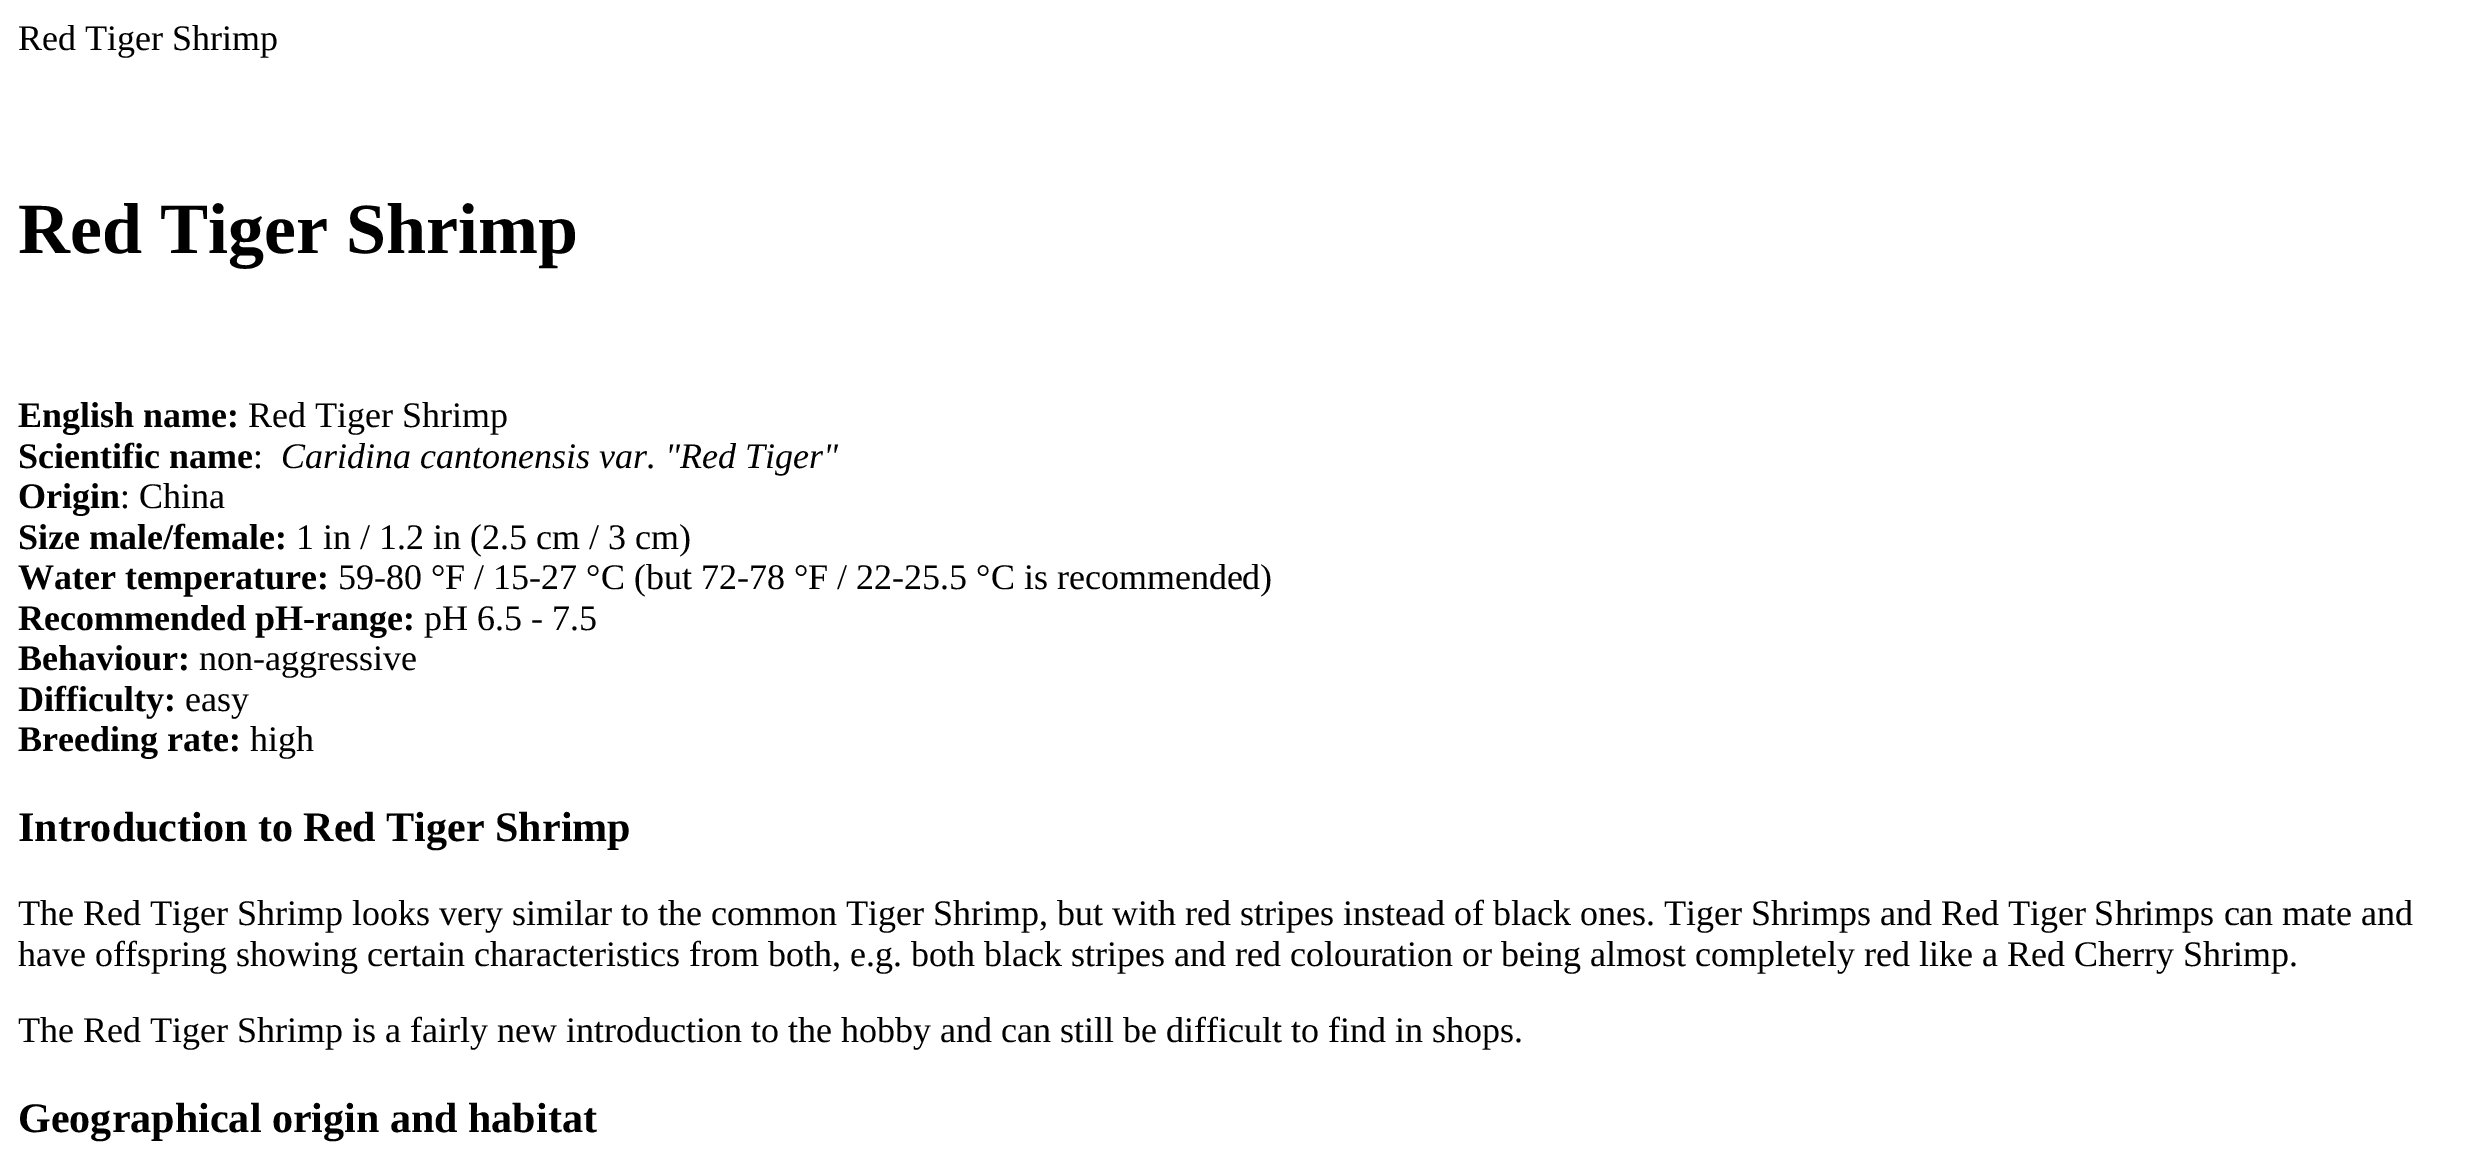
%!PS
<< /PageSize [2483 1149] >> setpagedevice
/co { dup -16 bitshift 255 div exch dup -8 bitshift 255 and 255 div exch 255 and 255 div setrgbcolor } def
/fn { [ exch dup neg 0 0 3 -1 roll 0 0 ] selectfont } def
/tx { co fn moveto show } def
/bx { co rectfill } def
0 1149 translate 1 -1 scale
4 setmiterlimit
0 0 2483 1149 16#FFFFFF bx
(Red Tiger Shrimp) 18 50 /LiberationSerif-Regular 36 16#000000 tx
(Red Tiger Shrimp) 18 253 /LiberationSerif-Bold 72 16#000000 tx
(English name:) 18 427 /LiberationSerif-Bold 36 16#000000 tx
(Red Tiger Shrimp) 248 427 /LiberationSerif-Regular 36 16#000000 tx
(Scientific name) 18 468 /LiberationSerif-Bold 36 16#000000 tx
(:) 253 468 /LiberationSerif-Regular 36 16#000000 tx
(Caridina cantonensis var. "Red Tiger") 281 468 /LiberationSerif-Italic 36 16#000000 tx
(Origin) 18 508 /LiberationSerif-Bold 36 16#000000 tx
(: China) 120 508 /LiberationSerif-Regular 36 16#000000 tx
(Size male/female:) 18 549 /LiberationSerif-Bold 36 16#000000 tx
(1 in / 1.2 in \(2.5 cm / 3 cm\)) 296 549 /LiberationSerif-Regular 36 16#000000 tx
(Water temperature:) 18 589 /LiberationSerif-Bold 36 16#000000 tx
(59-80 °F / 15-27 °C \(but 72-78 °F / 22-25.5 °C is recommended\)) 338 589 /LiberationSerif-Regular 36 16#000000 tx
(Recommended pH-range:) 18 630 /LiberationSerif-Bold 36 16#000000 tx
(pH 6.5 - 7.5) 424 630 /LiberationSerif-Regular 36 16#000000 tx
(Behaviour:) 18 670 /LiberationSerif-Bold 36 16#000000 tx
(non-aggressive) 199 670 /LiberationSerif-Regular 36 16#000000 tx
(Difficulty:) 18 711 /LiberationSerif-Bold 36 16#000000 tx
(easy) 185 711 /LiberationSerif-Regular 36 16#000000 tx
(Breeding rate:) 18 751 /LiberationSerif-Bold 36 16#000000 tx
(high) 250 751 /LiberationSerif-Regular 36 16#000000 tx
(Introduction to Red Tiger) 18 841 /LiberationSerif-Bold 42.1 16#000000 tx
(Shrimp) 495 841 /LiberationSerif-Bold 42.1 16#000000 tx
(The Red Tiger Shrimp looks very similar to the common Tiger Shrimp, but with red stripes instead of black ones. Tiger Shrimps and Red Tiger Shrimps can mate and) 18 925 /LiberationSerif-Regular 36 16#000000 tx
(have offspring showing certain characteristics from both, e.g. both black stripes and red colouration or being almost completely red like a Red Cherry Shrimp.) 18 966 /LiberationSerif-Regular 36 16#000000 tx
(The Red Tiger Shrimp is a fairly new introduction to the hobby and can still be difficult to find in shops.) 18 1042 /LiberationSerif-Regular 36 16#000000 tx
(Geographical origin and) 18 1132 /LiberationSerif-Bold 42.1 16#000000 tx
(habitat) 468 1132 /LiberationSerif-Bold 42.1 16#000000 tx
showpage
